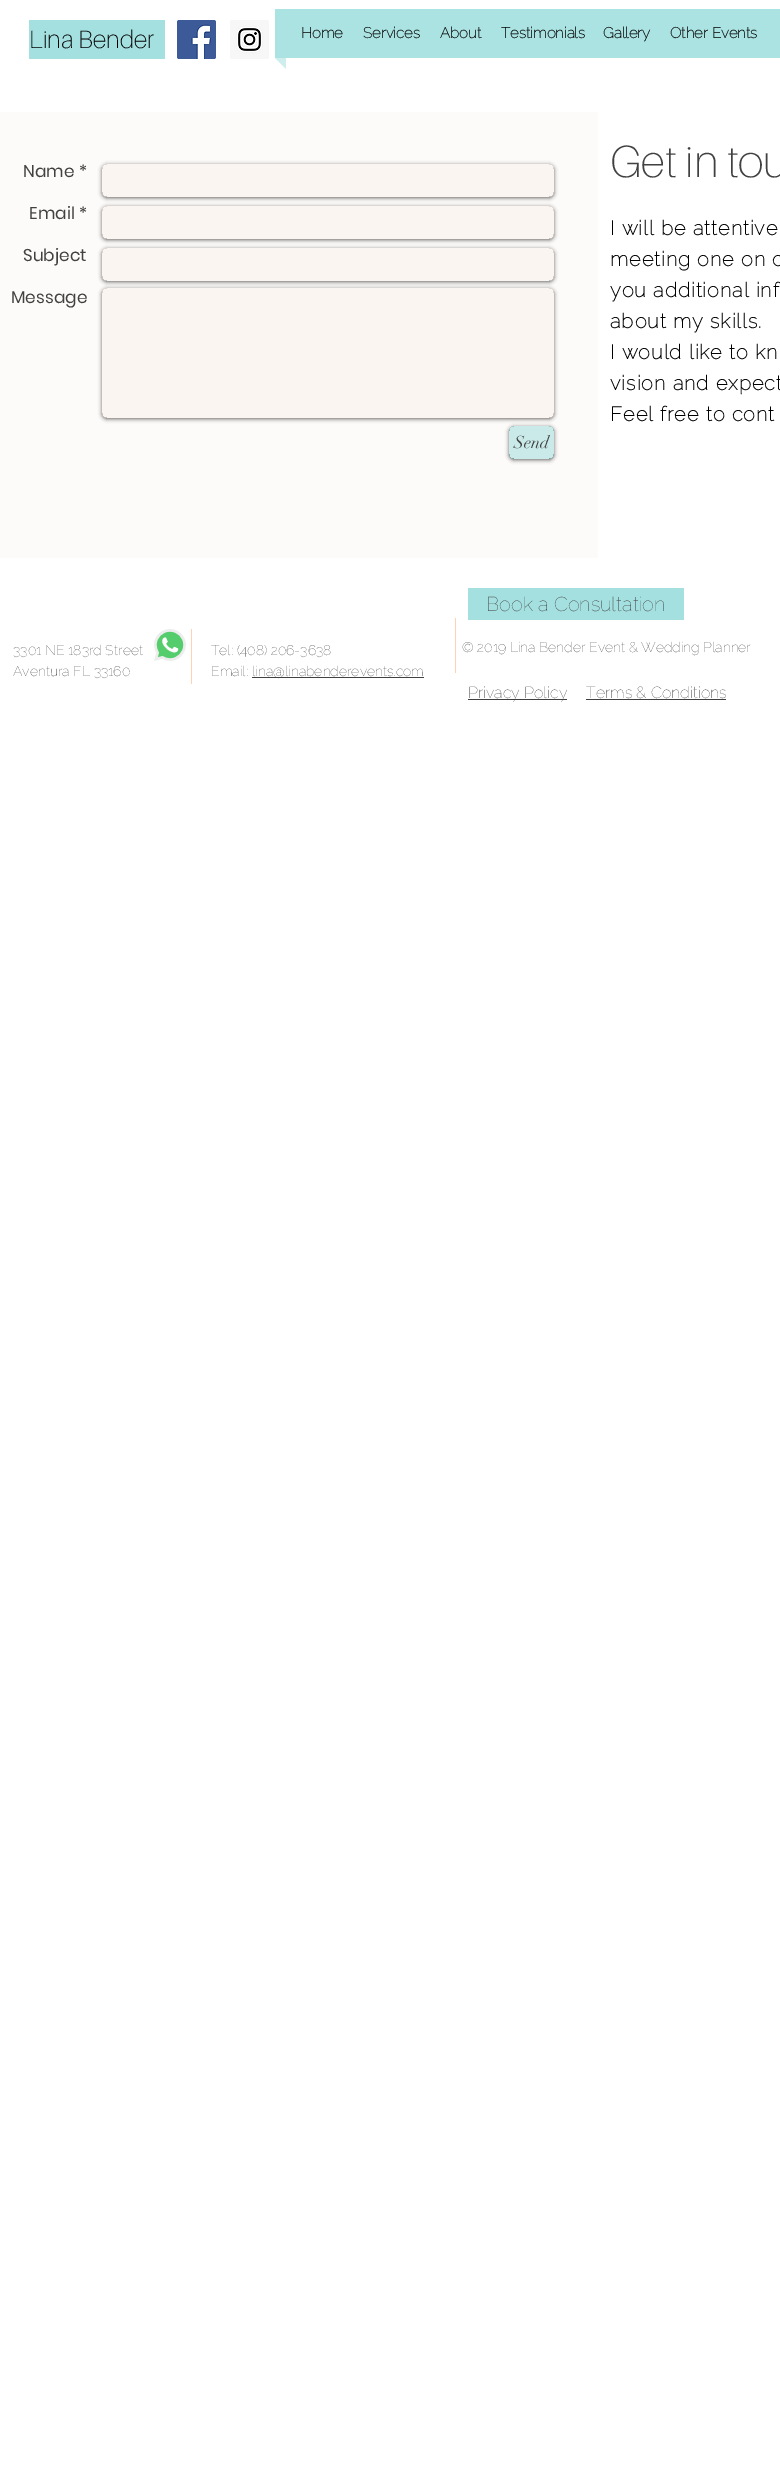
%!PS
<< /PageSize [780 2485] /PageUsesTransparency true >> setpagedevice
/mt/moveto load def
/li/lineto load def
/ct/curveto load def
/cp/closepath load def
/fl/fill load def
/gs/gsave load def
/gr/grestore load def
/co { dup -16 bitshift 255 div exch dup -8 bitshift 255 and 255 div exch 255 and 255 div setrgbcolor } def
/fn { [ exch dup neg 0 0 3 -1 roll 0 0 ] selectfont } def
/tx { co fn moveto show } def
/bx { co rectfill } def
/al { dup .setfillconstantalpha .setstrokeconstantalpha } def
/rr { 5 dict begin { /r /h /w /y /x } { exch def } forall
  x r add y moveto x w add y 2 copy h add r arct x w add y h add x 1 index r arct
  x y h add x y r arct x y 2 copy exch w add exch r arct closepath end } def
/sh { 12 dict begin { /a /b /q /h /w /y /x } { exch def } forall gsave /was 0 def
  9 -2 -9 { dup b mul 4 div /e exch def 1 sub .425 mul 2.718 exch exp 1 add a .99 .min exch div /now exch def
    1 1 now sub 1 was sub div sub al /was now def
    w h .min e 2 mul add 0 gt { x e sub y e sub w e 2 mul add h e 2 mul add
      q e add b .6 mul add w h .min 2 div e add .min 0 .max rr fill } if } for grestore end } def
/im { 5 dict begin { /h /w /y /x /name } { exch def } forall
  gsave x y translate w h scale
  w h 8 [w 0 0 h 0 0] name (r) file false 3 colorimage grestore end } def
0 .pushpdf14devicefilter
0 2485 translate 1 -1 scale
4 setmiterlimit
0 0 780 2485 16#FFFFFF bx
29 20 136 39 16#A4E0E0 bx
(media/1.raw) 177 20 39 39 im
(media/2.raw) 230 20 39 39 im
275 9 505 49 16#ABE2E2 bx
16#CEEEEE co
275 58 mt 286 58 li 286 69 li cp fl
0 112 598 446 16#FDFBF9 bx
gs
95 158 mt 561 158 li 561 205 li 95 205 li cp 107 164 mt 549 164 li 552 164 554 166 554 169 ct 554 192 li 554 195 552 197 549 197 ct 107 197 li 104 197 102 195 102 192 ct 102 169 li 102 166 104 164 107 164 ct cp eoclip newpath
16#000000 co
102 165 452 33 5 2 .6 sh
gr
0.5 al
16#F7EFE9 co
102 164 452 33 5 rr fl
gs
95 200 mt 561 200 li 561 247 li 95 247 li cp 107 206 mt 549 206 li 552 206 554 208 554 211 ct 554 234 li 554 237 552 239 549 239 ct 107 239 li 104 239 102 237 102 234 ct 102 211 li 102 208 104 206 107 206 ct cp eoclip newpath
1 al
16#000000 co
102 207 452 33 5 2 .6 sh
gr
102 206 452 33 5 rr fl
gs
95 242 mt 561 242 li 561 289 li 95 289 li cp 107 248 mt 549 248 li 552 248 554 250 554 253 ct 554 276 li 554 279 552 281 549 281 ct 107 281 li 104 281 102 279 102 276 ct 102 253 li 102 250 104 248 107 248 ct cp eoclip newpath
1 al
16#000000 co
102 249 452 33 5 2 .6 sh
gr
102 248 452 33 5 rr fl
gs
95 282 mt 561 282 li 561 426 li 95 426 li cp 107 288 mt 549 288 li 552 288 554 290 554 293 ct 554 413 li 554 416 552 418 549 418 ct 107 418 li 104 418 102 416 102 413 ct 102 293 li 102 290 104 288 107 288 ct cp eoclip newpath
1 al
16#000000 co
102 289 452 130 5 2 .6 sh
gr
102 288 452 130 5 rr fl
gs
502 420 mt 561 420 li 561 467 li 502 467 li cp 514 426 mt 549 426 li 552 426 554 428 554 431 ct 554 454 li 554 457 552 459 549 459 ct 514 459 li 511 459 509 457 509 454 ct 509 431 li 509 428 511 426 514 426 ct cp eoclip newpath
1 al
16#000000 co
509 427 45 33 5 2 .6 sh
gr
0.32 al
16#5AC7C7 co
509 426 45 33 5 rr fl
1 al
468 588 216 32 16#A4E0E0 bx
(media/3.raw) 154 629 32 32 im
191 629 1 55 16#FFD2B3 bx
252 677 172 1 16#414141 bx
455 618 1 55 16#FFD2B3 bx
468 699 99 1 16#414141 bx
586 699 140 1 16#414141 bx
(Lina Bender) 29 48 /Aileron-Thin 25 16#000000 tx
(Home) 301 38 /Raleway-Bold 15 16#000000 tx
(Services) 363 38 /Raleway-Bold 15 16#000000 tx
(About) 440 38 /Raleway-Bold 15 16#000000 tx
(Testimonials) 501 38 /Raleway-Bold 15 16#000000 tx
(Gallery) 603 38 /Raleway-Bold 15 16#000000 tx
(Other Events) 670 38 /Raleway-Bold 15 16#000000 tx
(Name *) 23 177 /Poppins-Regular 17 16#414141 tx
(Email *) 29 219 /Poppins-Regular 17 16#414141 tx
(Subject) 23 261 /Poppins-Regular 17 16#414141 tx
(Message) 11 303 /Poppins-Regular 17 16#414141 tx
(Send) 514 448 /didot-Regular 17 16#414141 tx
(Get in tou) 610 177 /Aileron-Thin 45 16#414141 tx
/Raleway-Bold 20 fn
16#000000 co
610 235 mt 1 0 (I will be attentive) ashow
610 266 mt 1 0 (meeting one on o) ashow
610 297 mt 1 0 (you additional inf) ashow
610 328 mt 1 0 (about my skills.) ashow
610 359 mt 1 0 (I would like to kn) ashow
610 390 mt 1 0 (vision and expect) ashow
610 421 mt 1 0 (Feel free to cont) ashow
(Book a Consultation) 486 611 /Raleway-Thin 20 16#414141 tx
(3301 NE 183rd Street) 13 655 /Raleway-Thin 14 16#414141 tx
(Aventura FL 33160) 13 676 /Raleway-Thin 14 16#414141 tx
(Tel: \(408\) 206-3638) 211 655 /Raleway-Thin 14 16#414141 tx
(Email:) 211 676 /Raleway-Thin 14 16#414141 tx
(lina@linabenderevents.com) 252 676 /Raleway-Thin 14 16#414141 tx
(© 2019 Lina Bender Event & Wedding Planner) 462 652 /Raleway-Thin 14 16#414141 tx
(Privacy Policy) 468 698 /Raleway-Thin 16 16#414141 tx
(Terms & Conditions) 586 698 /Raleway-Thin 16 16#414141 tx
.poppdf14devicefilter showpage
